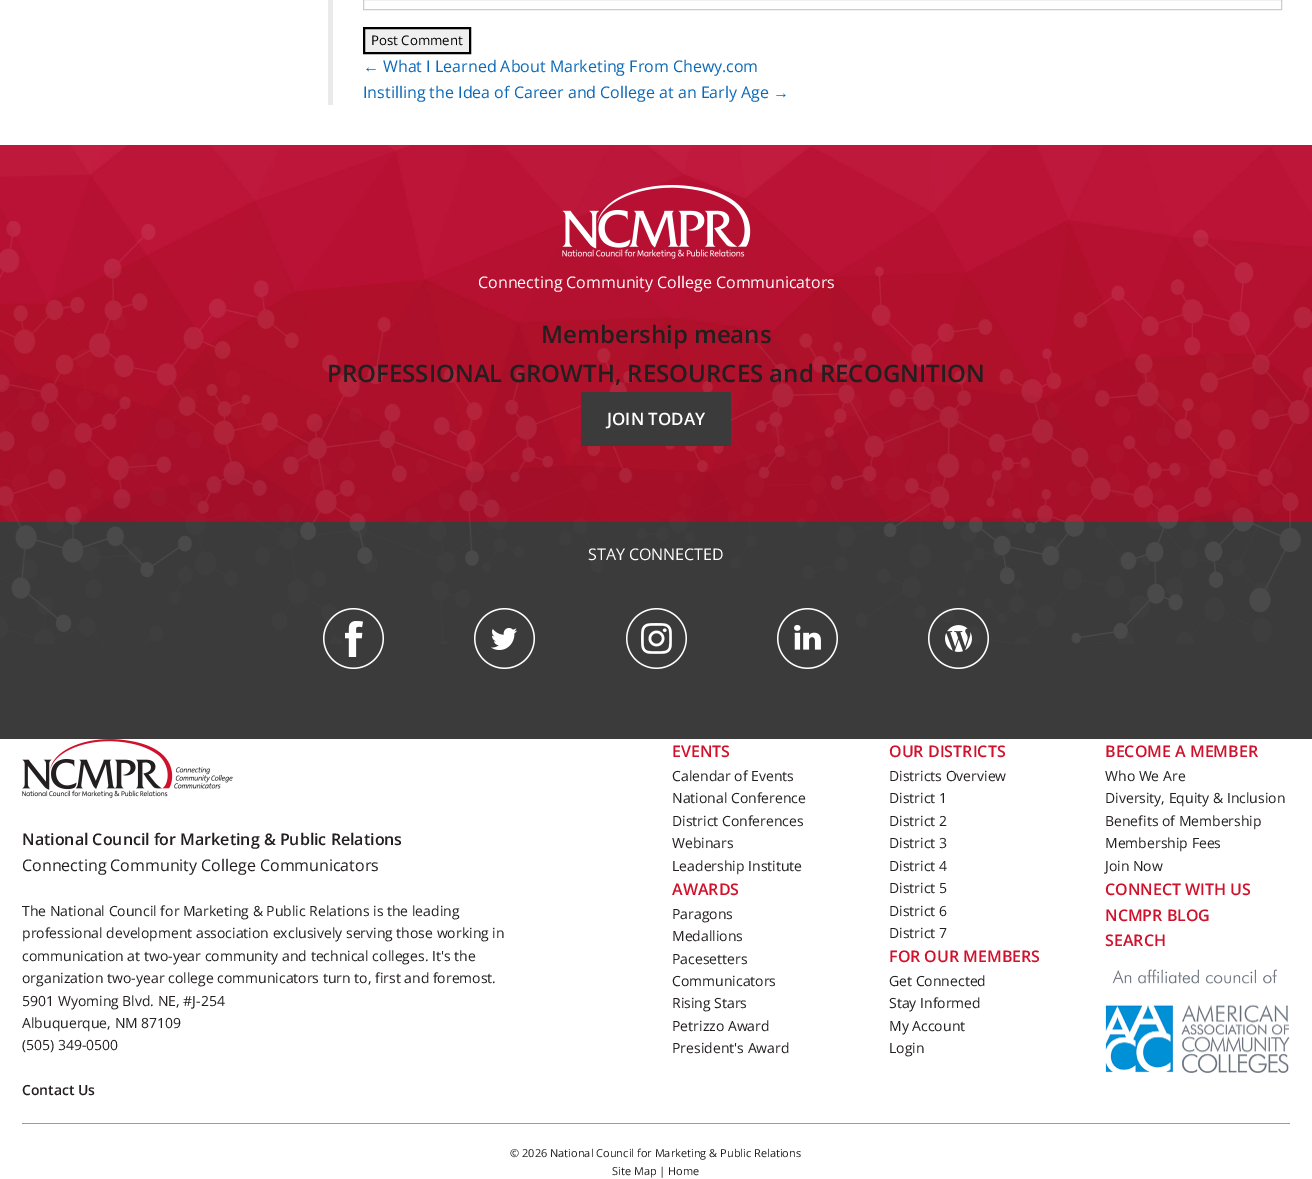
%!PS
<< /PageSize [1312 1179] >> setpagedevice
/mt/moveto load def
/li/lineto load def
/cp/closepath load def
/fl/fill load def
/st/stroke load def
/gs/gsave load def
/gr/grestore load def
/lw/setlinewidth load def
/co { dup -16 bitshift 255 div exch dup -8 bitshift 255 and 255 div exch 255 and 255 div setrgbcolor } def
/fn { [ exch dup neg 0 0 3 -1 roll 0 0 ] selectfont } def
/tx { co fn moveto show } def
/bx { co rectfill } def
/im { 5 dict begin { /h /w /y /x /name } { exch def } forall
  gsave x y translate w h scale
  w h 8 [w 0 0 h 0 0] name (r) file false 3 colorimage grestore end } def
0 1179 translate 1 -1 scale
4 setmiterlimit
0 0 1312 1179 16#FFFFFF bx
328 0 5 105 16#EAEAEA bx
16#CCCCCC co
363.5 -.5 918 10 rectstroke
16#EFEFEF co
364 28 mt 470 28 li 470 53 li 364 53 li cp gs fl gr
16#000000 co
2 lw
st
0 522 1312 217 16#3C3B3B bx
(media/1.raw) 0 145 1312 377 im
(media/2.raw) 0 221 1312 423 im
(media/3.raw) 562 185 189 74 im
581 392 150 54 16#3C3B3B bx
(media/4.raw) 323 608 61 61 im
(media/5.raw) 474 608 61 61 im
(media/6.raw) 626 608 61 61 im
(media/7.raw) 777 608 61 61 im
(media/8.raw) 928 608 61 61 im
(media/9.raw) 22 739 211 59 im
(media/10.raw) 1105 969 185 104 im
22 1123 1268 1 16#9C9C9C bx
(Post Comment) 371 45 /OpenSans-Regular 13.25 16#000000 tx
(←) 363 72 /LiberationSans-Regular 16 16#0A69B9 tx
(What I Learned About Marketing From Chewy.com) 383 72 /OpenSans-Regular 16 16#0A69B9 tx
(Instilling the Idea of Career and College at an Early Age) 363 98 /OpenSans-Regular 16 16#0A69B9 tx
(→) 773 98 /LiberationSans-Regular 16 16#0A69B9 tx
(Connecting Community College Communicators) 478 288 /OpenSans-Regular 16 16#FFFFFF tx
(Membership means) 541 343 /OpenSans-SemiBold 24 16#231F20 tx
(PROFESSIONAL GROWTH, RESOURCES and RECOGNITION) 327 382 /OpenSans-SemiBold 24 16#231F20 tx
(JOIN TODAY) 607 425 /OpenSans-SemiBold 17 16#FFFFFF tx
(STAY CONNECTED) 588 560 /OpenSans-Regular 16 16#FFFFFF tx
(National Council for Marketing & Public Relations) 22 845 /OpenSans-SemiBold 16 16#231F20 tx
(Connecting Community College Communicators) 22 871 /OpenSans-Regular 16 16#231F20 tx
(The National Council for Marketing & Public Relations is the leading) 22 916 /OpenSans-Regular 14 16#231F20 tx
(professional development association exclusively serving those working in) 22 938 /OpenSans-Regular 14 16#231F20 tx
(communication at two-year community and technical colleges. It's the) 22 961 /OpenSans-Regular 14 16#231F20 tx
(organization two-year college communicators turn to, first and foremost.) 22 983 /OpenSans-Regular 14 16#231F20 tx
(5901 Wyoming Blvd. NE, #J-254) 22 1006 /OpenSans-Regular 14 16#231F20 tx
(Albuquerque, NM 87109) 22 1028 /OpenSans-Regular 14 16#231F20 tx
(\(505\) 349-0500) 22 1050 /OpenSans-Regular 14 16#231F20 tx
(Contact Us) 22 1095 /OpenSans-SemiBold 14 16#231F20 tx
(EVENTS) 672 757 /OpenSans-SemiBold 16 16#D0112B tx
(Calendar of Events) 672 781 /OpenSans-Regular 14 16#231F20 tx
(National Conference) 672 803 /OpenSans-Regular 14 16#231F20 tx
(District Conferences) 672 826 /OpenSans-Regular 14 16#231F20 tx
(Webinars) 672 848 /OpenSans-Regular 14 16#231F20 tx
(Leadership Institute) 672 871 /OpenSans-Regular 14 16#231F20 tx
(AWARDS) 672 895 /OpenSans-SemiBold 16 16#D0112B tx
(Paragons) 672 919 /OpenSans-Regular 14 16#231F20 tx
(Medallions) 672 941 /OpenSans-Regular 14 16#231F20 tx
(Pacesetters) 672 964 /OpenSans-Regular 14 16#231F20 tx
(Communicators) 672 986 /OpenSans-Regular 14 16#231F20 tx
(Rising Stars) 672 1008 /OpenSans-Regular 14 16#231F20 tx
(Petrizzo Award) 672 1031 /OpenSans-Regular 14 16#231F20 tx
(President's Award) 672 1053 /OpenSans-Regular 14 16#231F20 tx
(OUR DISTRICTS) 889 757 /OpenSans-SemiBold 16 16#D0112B tx
(Districts Overview) 889 781 /OpenSans-Regular 14 16#231F20 tx
(District 1) 889 803 /OpenSans-Regular 14 16#231F20 tx
(District 2) 889 826 /OpenSans-Regular 14 16#231F20 tx
(District 3) 889 848 /OpenSans-Regular 14 16#231F20 tx
(District 4) 889 871 /OpenSans-Regular 14 16#231F20 tx
(District 5) 889 893 /OpenSans-Regular 14 16#231F20 tx
(District 6) 889 916 /OpenSans-Regular 14 16#231F20 tx
(District 7) 889 938 /OpenSans-Regular 14 16#231F20 tx
(FOR OUR MEMBERS) 889 962 /OpenSans-SemiBold 16 16#D0112B tx
(Get Connected) 889 986 /OpenSans-Regular 14 16#231F20 tx
(Stay Informed) 889 1008 /OpenSans-Regular 14 16#231F20 tx
(My Account) 889 1031 /OpenSans-Regular 14 16#231F20 tx
(Login) 889 1053 /OpenSans-Regular 14 16#231F20 tx
(BECOME A MEMBER) 1105 757 /OpenSans-SemiBold 16 16#D0112B tx
(Who We Are) 1105 781 /OpenSans-Regular 14 16#231F20 tx
(Diversity, Equity & Inclusion) 1105 803 /OpenSans-Regular 14 16#231F20 tx
(Benefits of Membership) 1105 826 /OpenSans-Regular 14 16#231F20 tx
(Membership Fees) 1105 848 /OpenSans-Regular 14 16#231F20 tx
(Join Now) 1105 871 /OpenSans-Regular 14 16#231F20 tx
(CONNECT WITH US) 1105 895 /OpenSans-SemiBold 16 16#D0112B tx
(NCMPR BLOG) 1105 921 /OpenSans-SemiBold 16 16#D0112B tx
(SEARCH) 1105 946 /OpenSans-SemiBold 16 16#D0112B tx
(© 2026 National Council for Marketing & Public Relations) 510 1157 /OpenSans-Regular 11 16#231F20 tx
(Site Map | Home) 612 1175 /OpenSans-Regular 11 16#231F20 tx
showpage
